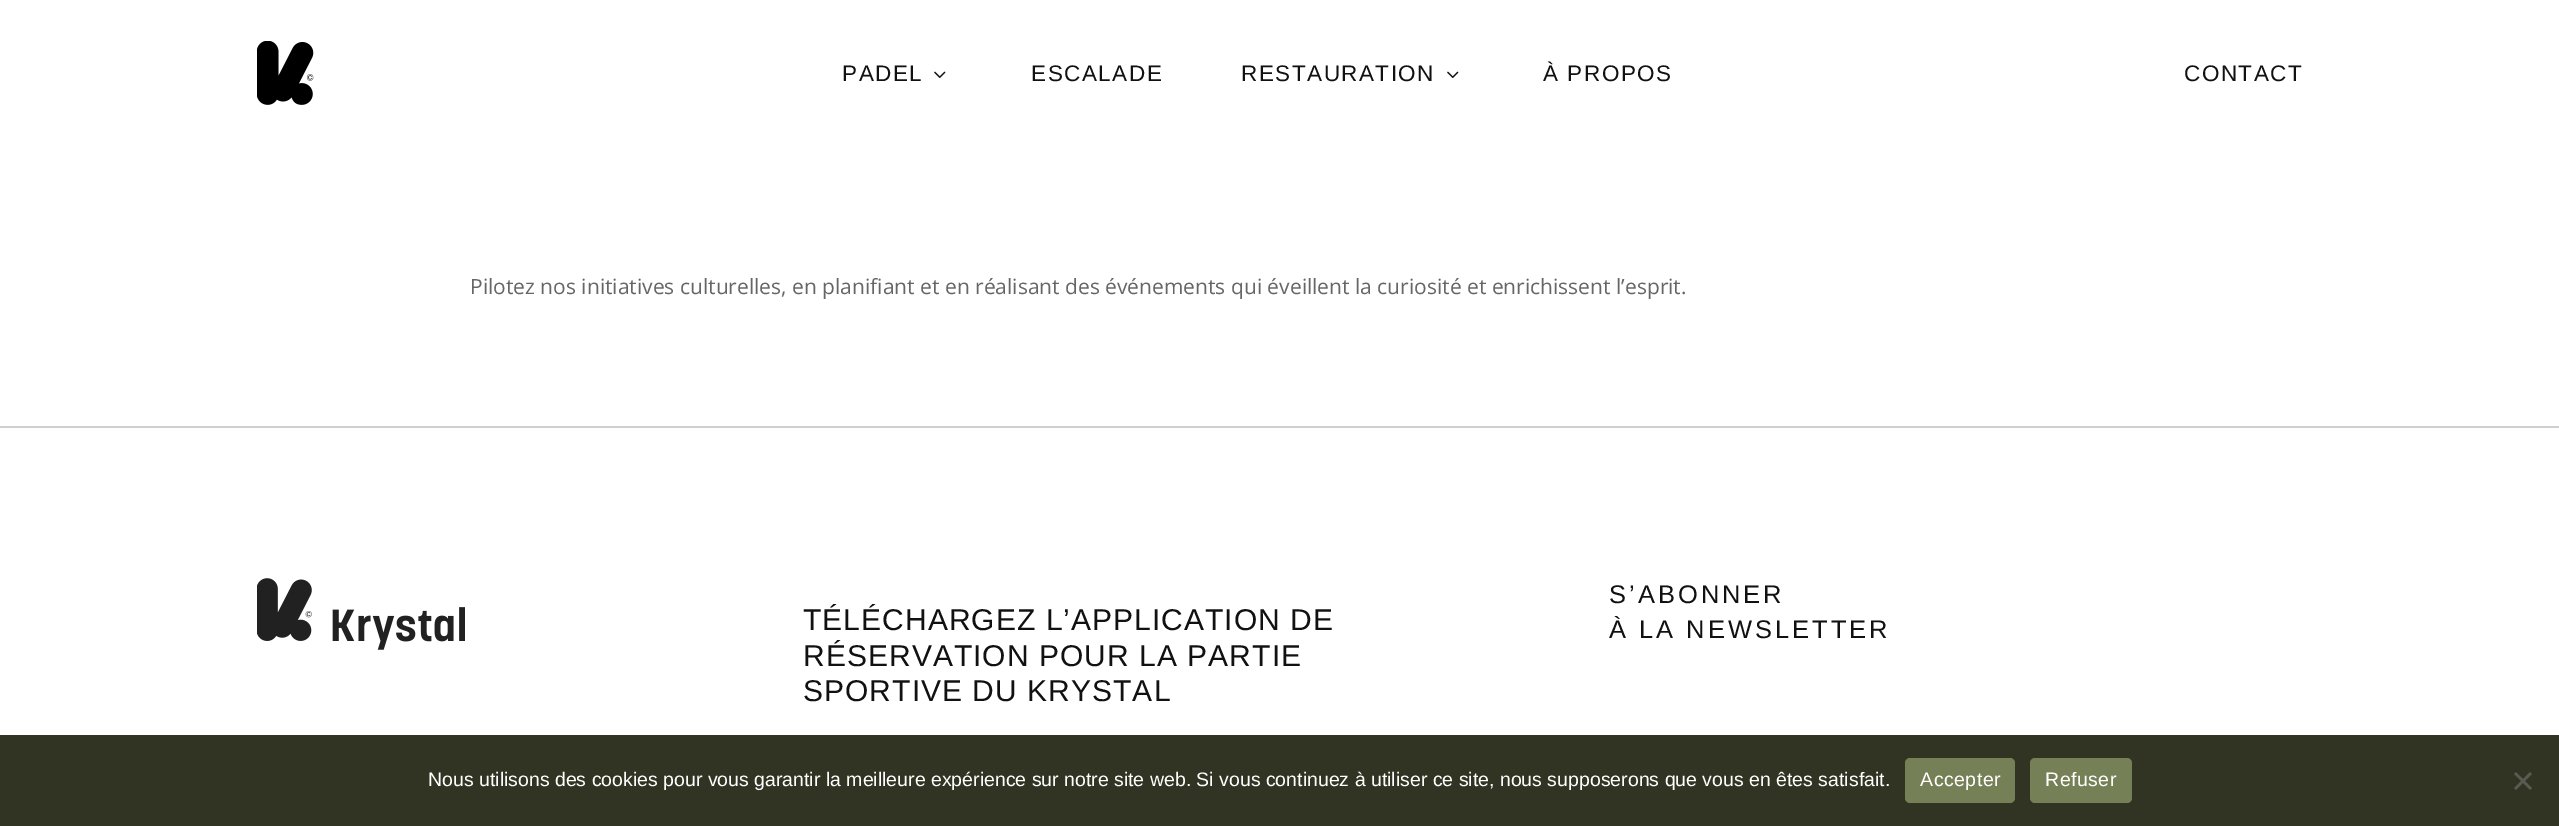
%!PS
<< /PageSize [2559 826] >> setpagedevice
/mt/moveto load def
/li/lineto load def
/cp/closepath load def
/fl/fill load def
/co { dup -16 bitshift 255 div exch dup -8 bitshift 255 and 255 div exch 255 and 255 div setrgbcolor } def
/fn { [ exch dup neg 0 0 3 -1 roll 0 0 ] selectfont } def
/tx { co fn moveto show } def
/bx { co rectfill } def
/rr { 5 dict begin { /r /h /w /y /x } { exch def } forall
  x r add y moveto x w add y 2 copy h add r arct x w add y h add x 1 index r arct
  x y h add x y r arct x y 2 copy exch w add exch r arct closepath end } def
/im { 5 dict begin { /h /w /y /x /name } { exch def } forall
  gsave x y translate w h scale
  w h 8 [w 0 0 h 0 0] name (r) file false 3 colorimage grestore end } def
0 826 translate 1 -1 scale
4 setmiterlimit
0 0 2559 826 16#FFFFFF bx
(media/1.raw) 257 41 57 64 im
(media/2.raw) 934 71 12 7 im
(media/2.raw) 1447 71 12 7 im
0 426 2559 2 16#CFCFCF bx
(media/3.raw) 257 578 208 72 im
0 735 2559 91 16#313422 bx
16#768057 co
1905 758 110 45 5 rr fl
2030 758 102 45 5 rr fl
16#595A51 co
2530 772 mt 2532 774 li 2516 790 li 2514 788 li cp fl
2514 774 mt 2516 772 li 2532 788 li 2530 790 li cp fl
/LiberationSans-Regular 22.5 fn
16#111111 co
842 81 mt 1.5 0 (PADEL) ashow
1031 81 mt 1.5 0 (ESCALADE) ashow
1241 81 mt 1.5 0 (RESTAURATION) ashow
1543 81 mt 1.5 0 (À PROPOS) ashow
2184 81 mt 1.5 0 (CONTACT) ashow
(Pilotez nos initiatives culturelles, en planifiant et en réalisant des événements qui éveillent la curiosité et enrichissent l’esprit.) 470 294 /OpenSans-Regular 21 16#666666 tx
/LiberationSans-Regular 30 fn
16#111111 co
803 630 mt 1.05 0 (TÉLÉCHARGEZ L’APPLICATION DE) ashow
803 666 mt 1.05 0 (RÉSERVATION POUR LA PARTIE) ashow
803 701 mt 1.05 0 (SPORTIVE DU KRYSTAL) ashow
/LiberationSans-Regular 25.5 fn
1609 603 mt 3 0 (S’ABONNER) ashow
1609 638 mt 3 0 (À LA NEWSLETTER) ashow
(Nous utilisons des cookies pour vous garantir la meilleure expérience sur notre site web. Si vous continuez à utiliser ce site, nous supposerons que vous en êtes satisfait.) 428 786 /LiberationSans-Regular 19.5 16#FFFFFF tx
1920 786 mt .5 0 (Accepter) ashow
2045 786 mt .5 0 (Refuser) ashow
showpage
